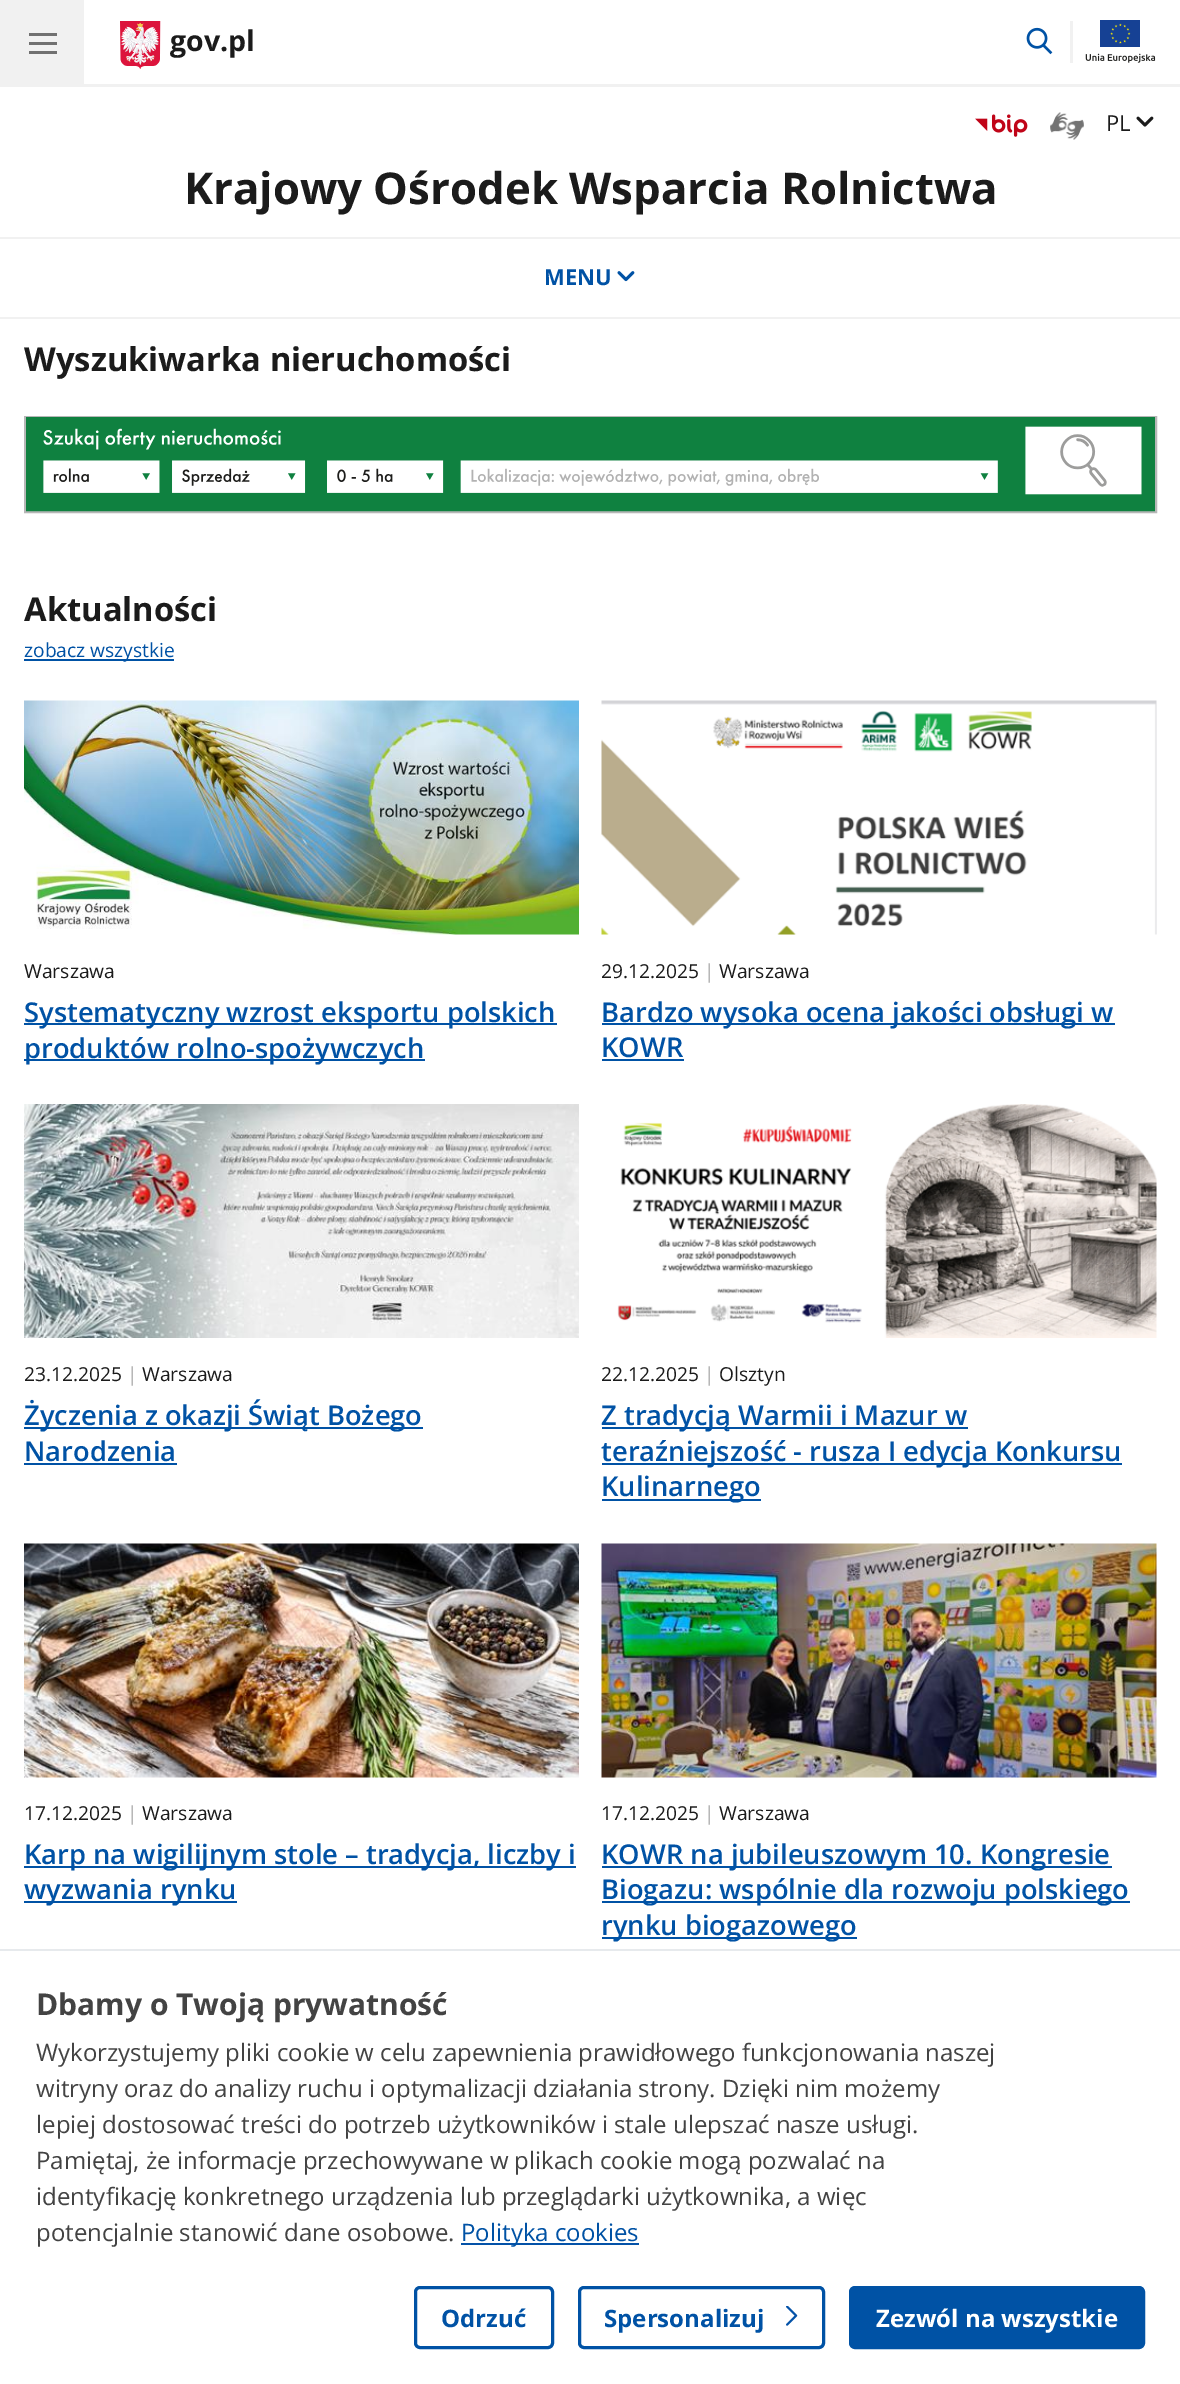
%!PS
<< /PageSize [1180 2384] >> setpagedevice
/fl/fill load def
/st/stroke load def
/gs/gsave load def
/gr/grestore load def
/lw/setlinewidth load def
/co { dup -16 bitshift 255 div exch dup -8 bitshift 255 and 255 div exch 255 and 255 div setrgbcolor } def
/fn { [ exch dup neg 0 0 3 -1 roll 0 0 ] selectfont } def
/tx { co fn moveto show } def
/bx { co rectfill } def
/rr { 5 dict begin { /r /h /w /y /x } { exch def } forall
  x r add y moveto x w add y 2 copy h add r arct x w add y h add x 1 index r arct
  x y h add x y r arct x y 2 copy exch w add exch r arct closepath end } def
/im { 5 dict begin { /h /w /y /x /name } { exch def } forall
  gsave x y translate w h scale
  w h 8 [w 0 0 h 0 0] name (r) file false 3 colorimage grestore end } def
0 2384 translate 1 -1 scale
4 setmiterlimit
0 0 1180 2384 16#FFFFFF bx
0 84 1180 3 16#F1F1F1 bx
0 0 84 84 16#F1F1F1 bx
29 33 28 3 16#717171 bx
29 42 28 3 16#717171 bx
29 51 28 3 16#717171 bx
(media/1.raw) 120 21 41 48 im
(media/2.raw) 1026 27 27 28 im
1070 21 3 42 16#F1F1F1 bx
(media/3.raw) 1085 20 71 43 im
(media/4.raw) 975 114 53 23 im
(media/5.raw) 1050 112 34 28 im
(media/6.raw) 1136 116 18 11 im
0 237 1180 2 16#F1F1F1 bx
0 317 1180 2 16#F1F1F1 bx
(media/7.raw) 617 271 18 11 im
16#B7B7B7 co
2 lw
25 417 1131 95 rectstroke
(media/8.raw) 26 417 1129 95 im
24 659 150 2 16#0052A5 bx
(media/9.raw) 24 700 555 235 im
24 1023 533 2 16#0052A5 bx
24 1059 401 2 16#0052A5 bx
(media/10.raw) 601 700 556 235 im
602 1023 513 2 16#0052A5 bx
602 1059 82 2 16#0052A5 bx
(media/11.raw) 24 1104 555 234 im
24 1427 399 2 16#0052A5 bx
24 1463 153 2 16#0052A5 bx
(media/12.raw) 617 1104 540 234 im
602 1427 366 2 16#0052A5 bx
602 1463 520 2 16#0052A5 bx
602 1499 159 2 16#0052A5 bx
(media/13.raw) 24 1543 555 235 im
24 1866 552 2 16#0052A5 bx
24 1901 213 2 16#0052A5 bx
(media/14.raw) 601 1543 556 235 im
602 1866 510 2 16#0052A5 bx
602 1901 528 2 16#0052A5 bx
602 1937 255 2 16#0052A5 bx
0 1949 1180 2 16#E7EAED bx
461 2243 178 2 16#0452A8 bx
16#0052A5 co
3 lw
415.5 2287.5 137 60 4.5 rr st
579.5 2287.5 244 60 4.5 rr st
(media/15.raw) 786 2306 12 20 im
850.5 2287.5 293 60 4.5 rr gs fl gr
st
(gov.pl) 170 51 /OpenSans-Bold 28.5 16#1B1B1B tx
(PL) 1106 131 /OpenSans-Regular 22 16#1B1B1B tx
(Krajowy Ośrodek Wsparcia Rolnictwa) 184 204 /OpenSans-Bold 43.75 16#1B1B1B tx
(MENU) 544 285 /OpenSans-Bold 22 16#0052A5 tx
(Wyszukiwarka nieruchomości) 24 371 /OpenSans-Bold 32.75 16#1B1B1B tx
(Aktualności) 24 621 /OpenSans-Bold 32.75 16#1B1B1B tx
(zobacz wszystkie) 24 657 /OpenSans-Regular 19.25 16#0052A5 tx
(Warszawa) 24 978 /OpenSans-Regular 19.25 16#1B1B1B tx
(Systematyczny wzrost eksportu polskich) 24 1022 /OpenSans-SemiBold 27.3 16#0052A5 tx
(produktów rolno-spożywczych) 24 1058 /OpenSans-SemiBold 27.3 16#0052A5 tx
(29.12.2025) 601 978 /OpenSans-Regular 19.25 16#1B1B1B tx
(|) 704 978 /OpenSans-Regular 19.25 16#B7B7B7 tx
(Warszawa) 719 978 /OpenSans-Regular 19.25 16#1B1B1B tx
(Bardzo wysoka ocena jakości obsługi w) 601 1022 /OpenSans-SemiBold 27.3 16#0052A5 tx
(KOWR) 601 1057 /OpenSans-SemiBold 27.3 16#0052A5 tx
(23.12.2025) 24 1381 /OpenSans-Regular 19.25 16#1B1B1B tx
(|) 127 1381 /OpenSans-Regular 19.25 16#B7B7B7 tx
(Warszawa) 142 1381 /OpenSans-Regular 19.25 16#1B1B1B tx
(Życzenia z okazji Świąt Bożego) 24 1425 /OpenSans-SemiBold 27.3 16#0052A5 tx
(Narodzenia) 24 1461 /OpenSans-SemiBold 27.3 16#0052A5 tx
(22.12.2025) 601 1381 /OpenSans-Regular 19.25 16#1B1B1B tx
(|) 704 1381 /OpenSans-Regular 19.25 16#B7B7B7 tx
(Olsztyn) 719 1381 /OpenSans-Regular 19.25 16#1B1B1B tx
(Z tradycją Warmii i Mazur w) 601 1425 /OpenSans-SemiBold 27.3 16#0052A5 tx
(teraźniejszość - rusza I edycja Konkursu) 601 1461 /OpenSans-SemiBold 27.3 16#0052A5 tx
(Kulinarnego) 601 1496 /OpenSans-SemiBold 27.3 16#0052A5 tx
(17.12.2025) 24 1820 /OpenSans-Regular 19.25 16#1B1B1B tx
(|) 127 1820 /OpenSans-Regular 19.25 16#B7B7B7 tx
(Warszawa) 142 1820 /OpenSans-Regular 19.25 16#1B1B1B tx
(Karp na wigilijnym stole – tradycja, liczby i) 24 1864 /OpenSans-SemiBold 27.3 16#0052A5 tx
(wyzwania rynku) 24 1899 /OpenSans-SemiBold 27.3 16#0052A5 tx
(17.12.2025) 601 1820 /OpenSans-Regular 19.25 16#1B1B1B tx
(|) 704 1820 /OpenSans-Regular 19.25 16#B7B7B7 tx
(Warszawa) 719 1820 /OpenSans-Regular 19.25 16#1B1B1B tx
(KOWR na jubileuszowym 10. Kongresie) 601 1864 /OpenSans-SemiBold 27.3 16#0052A5 tx
(Biogazu: wspólnie dla rozwoju polskiego) 601 1899 /OpenSans-SemiBold 27.3 16#0052A5 tx
(rynku biogazowego) 601 1935 /OpenSans-SemiBold 27.3 16#0052A5 tx
(Dbamy o Twoją prywatność) 36 2015 /OpenSans-Bold 30 16#434343 tx
(Wykorzystujemy pliki cookie w celu zapewnienia prawidłowego funkcjonowania naszej) 36 2061 /OpenSans-Regular 24 16#434343 tx
(witryny oraz do analizy ruchu i optymalizacji działania strony. Dzięki nim możemy) 36 2097 /OpenSans-Regular 24 16#434343 tx
(lepiej dostosować treści do potrzeb użytkowników i stale ulepszać nasze usługi.) 36 2133 /OpenSans-Regular 24 16#434343 tx
(Pamiętaj, że informacje przechowywane w plikach cookie mogą pozwalać na) 36 2169 /OpenSans-Regular 24 16#434343 tx
(identyfikację konkretnego urządzenia lub przeglądarki użytkownika, a więc) 36 2205 /OpenSans-Regular 24 16#434343 tx
(potencjalnie stanowić dane osobowe.) 36 2241 /OpenSans-Regular 24 16#434343 tx
(Polityka cookies) 461 2241 /OpenSans-Regular 24 16#0052A5 tx
(Odrzuć) 441 2327 /OpenSans-Bold 24 16#0052A5 tx
(Spersonalizuj) 604 2327 /OpenSans-Bold 24 16#0052A5 tx
(Zezwól na wszystkie) 876 2327 /OpenSans-Bold 24 16#FFFFFF tx
showpage
